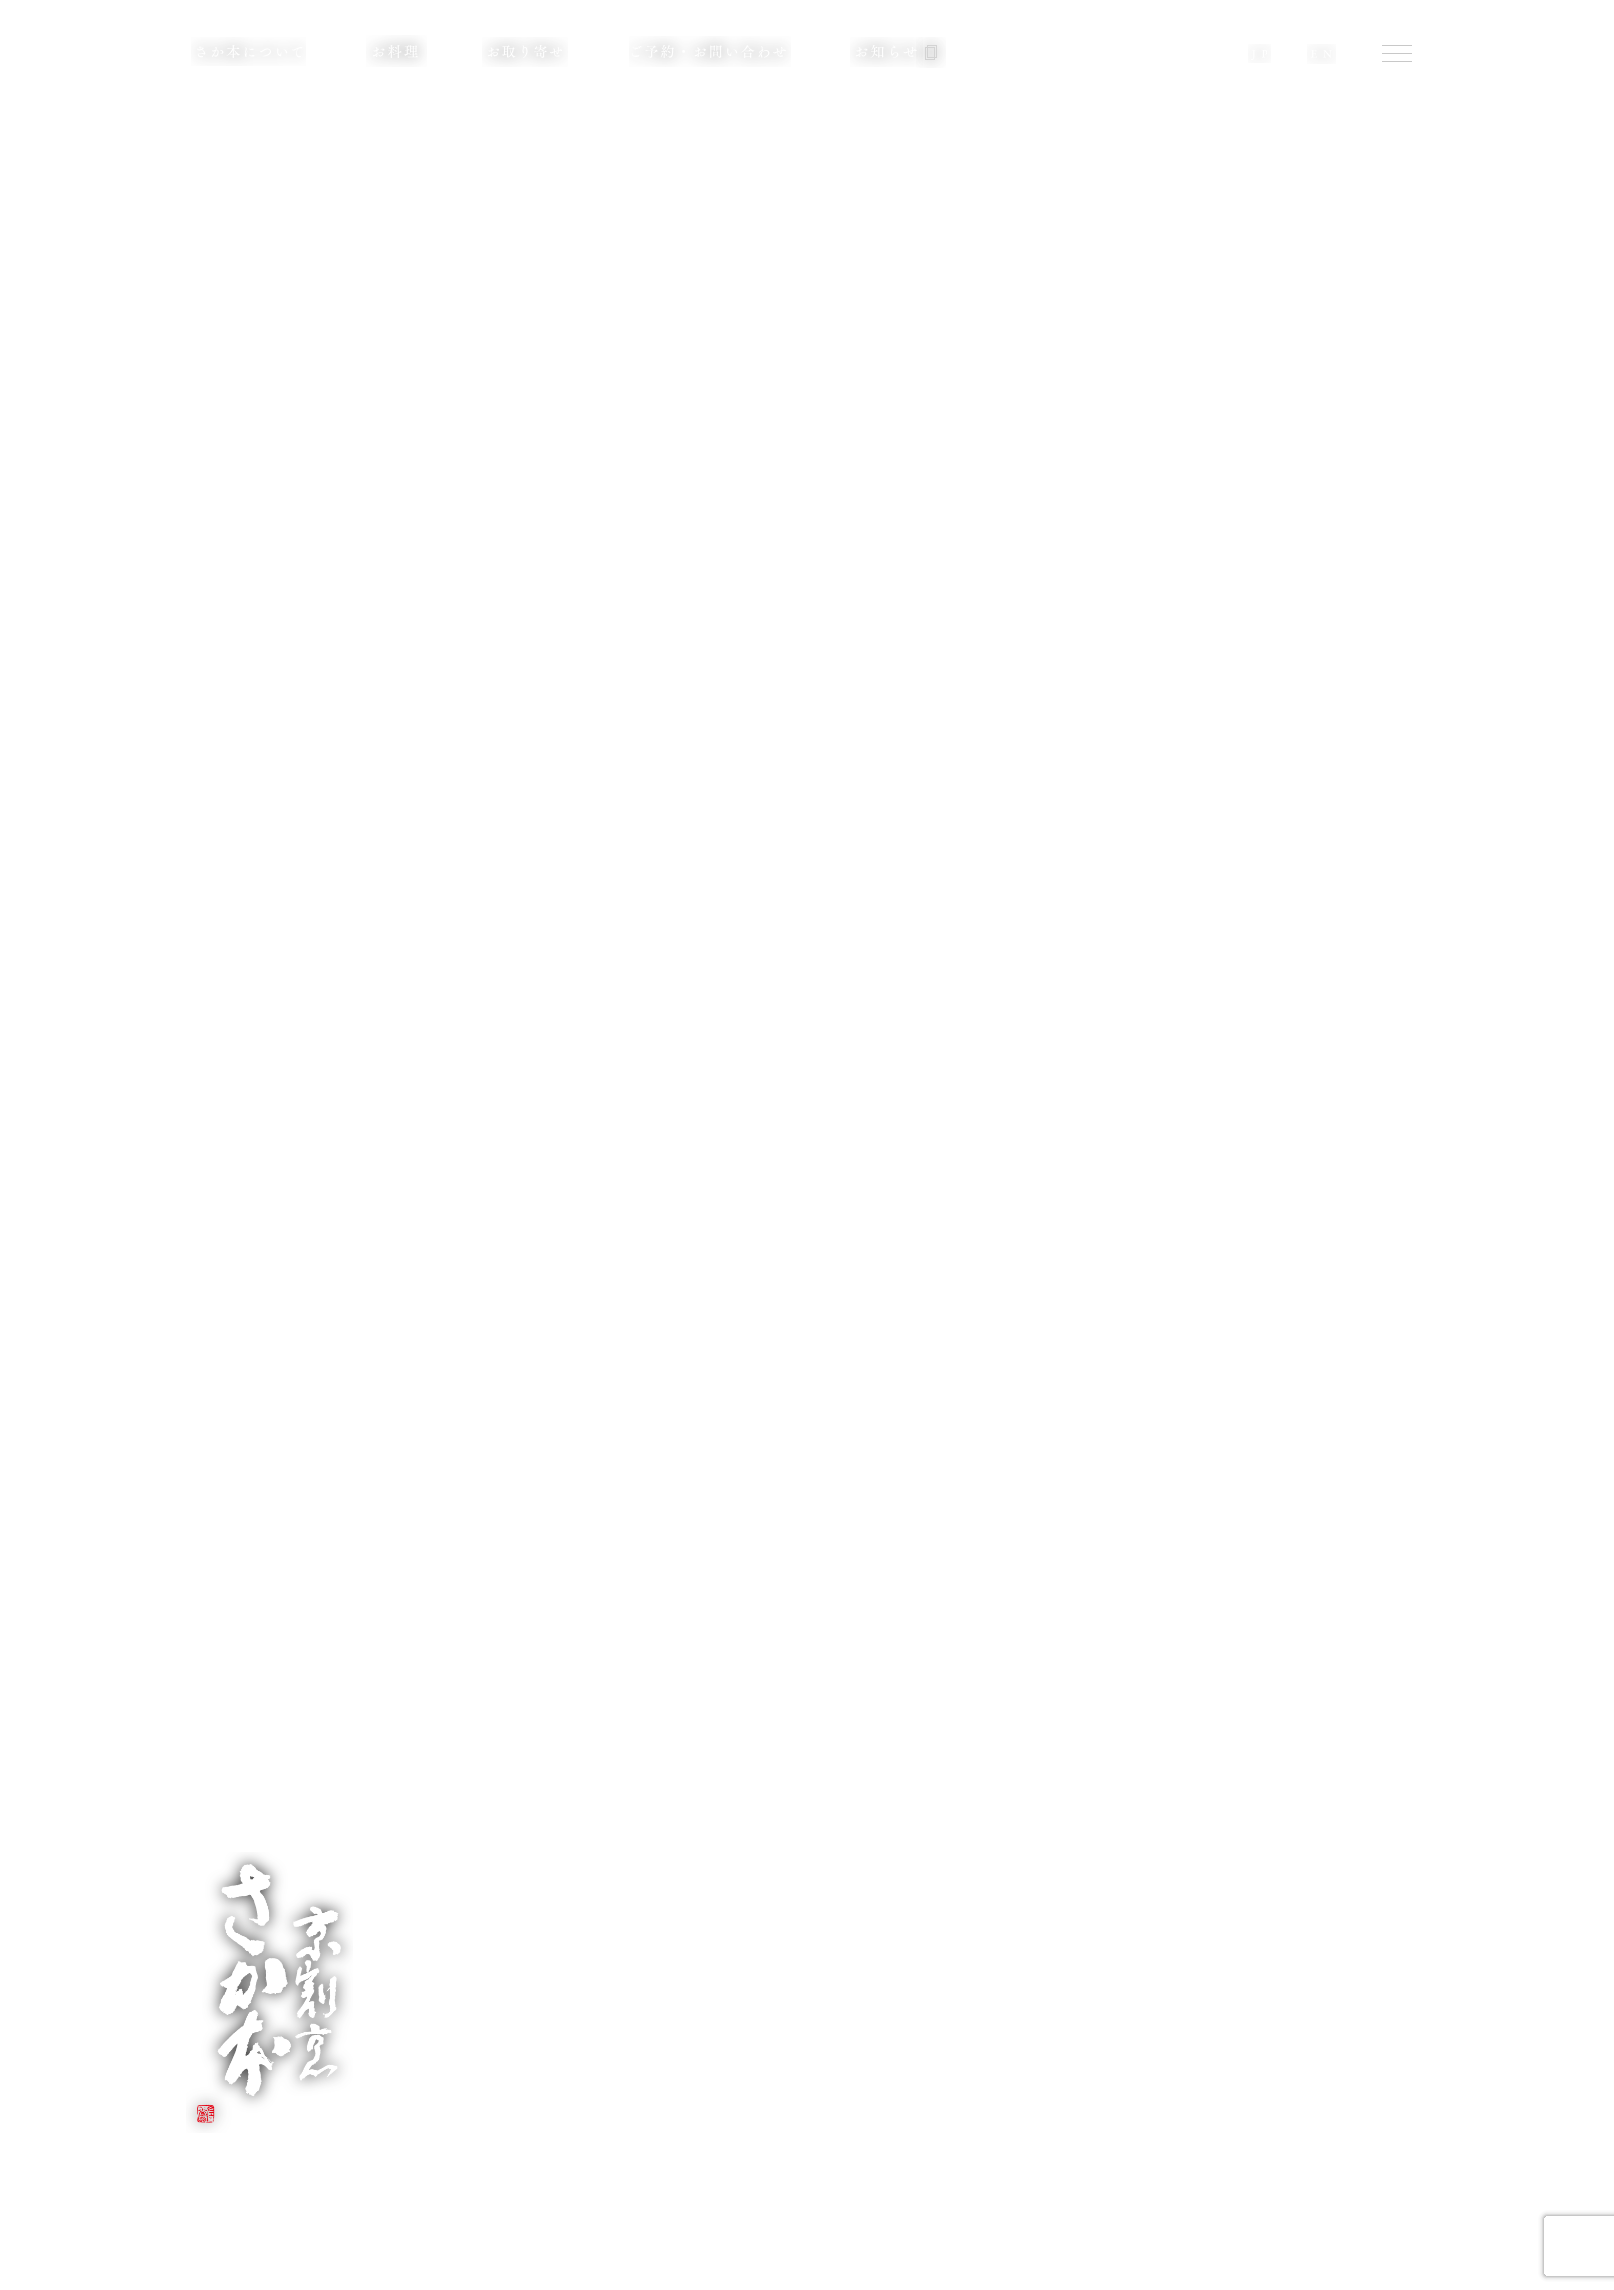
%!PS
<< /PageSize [1614 2290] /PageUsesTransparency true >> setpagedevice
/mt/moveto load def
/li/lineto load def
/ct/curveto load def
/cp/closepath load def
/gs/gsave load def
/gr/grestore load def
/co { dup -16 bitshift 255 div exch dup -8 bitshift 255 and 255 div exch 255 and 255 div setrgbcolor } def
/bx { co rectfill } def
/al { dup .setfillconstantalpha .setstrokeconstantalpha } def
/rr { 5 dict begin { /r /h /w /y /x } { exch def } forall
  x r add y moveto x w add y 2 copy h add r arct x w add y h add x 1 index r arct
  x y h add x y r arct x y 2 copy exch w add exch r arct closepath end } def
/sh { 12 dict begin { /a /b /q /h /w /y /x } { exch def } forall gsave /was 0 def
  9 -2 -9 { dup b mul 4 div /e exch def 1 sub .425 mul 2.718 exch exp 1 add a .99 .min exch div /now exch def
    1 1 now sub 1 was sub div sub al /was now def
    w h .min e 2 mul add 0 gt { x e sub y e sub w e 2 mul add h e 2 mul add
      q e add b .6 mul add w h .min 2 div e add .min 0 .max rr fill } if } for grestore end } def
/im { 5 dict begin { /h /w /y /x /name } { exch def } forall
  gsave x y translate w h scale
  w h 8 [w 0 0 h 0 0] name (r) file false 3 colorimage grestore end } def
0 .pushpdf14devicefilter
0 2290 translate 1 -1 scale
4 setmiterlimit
0 0 1614 2290 16#FFFFFF bx
(media/1.raw) 191 37 115 29 im
(media/2.raw) 366 35 61 32 im
(media/3.raw) 482 37 86 30 im
(media/4.raw) 629 36 162 31 im
(media/5.raw) 850 37 72 30 im
(media/6.raw) 916 37 30 31 im
(media/7.raw) 1248 44 23 19 im
(media/8.raw) 1307 44 29 20 im
(media/9.raw) 186 1852 167 281 im
1382 45 30 1 16#C8C8C8 bx
1382 53 30 1 16#C8C8C8 bx
1382 61 30 1 16#C8C8C8 bx
gs
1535 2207 mt 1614 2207 li 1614 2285 li 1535 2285 li cp 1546 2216 mt 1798 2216 li 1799 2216 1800 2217 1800 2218 ct 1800 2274 li 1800 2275 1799 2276 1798 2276 ct 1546 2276 li 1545 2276 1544 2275 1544 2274 ct 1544 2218 li 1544 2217 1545 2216 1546 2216 ct cp eoclip newpath
16#808080 co
1544 2216 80 60 2 2.5 1 sh
gr
.poppdf14devicefilter showpage
